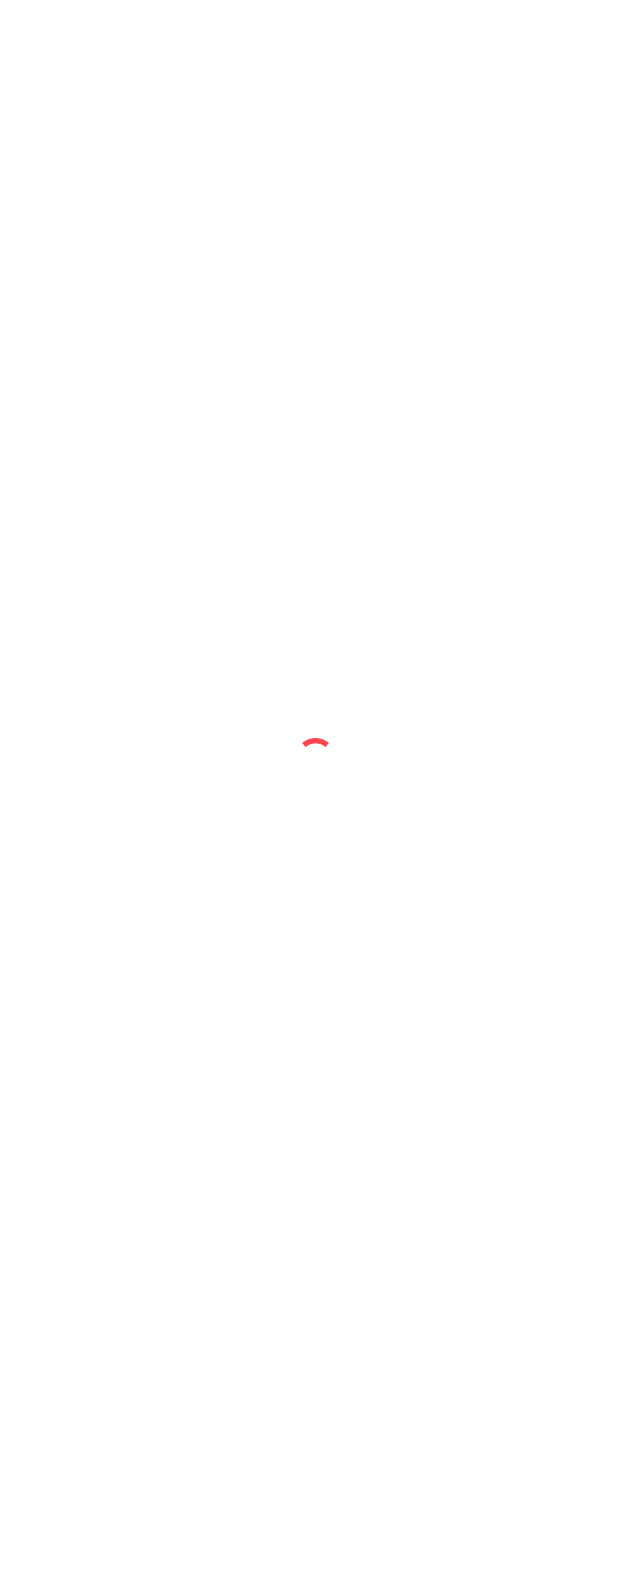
%!PS
<< /PageSize [630 1593] >> setpagedevice
/mt/moveto load def
/ct/curveto load def
/st/stroke load def
/lw/setlinewidth load def
/co { dup -16 bitshift 255 div exch dup -8 bitshift 255 and 255 div exch 255 and 255 div setrgbcolor } def
/bx { co rectfill } def
0 1593 translate 1 -1 scale
4 setmiterlimit
0 0 630 1593 16#FFFFFF bx
16#FF444F co
5 lw
304 745 mt 310.5 739 320.5 739 327 745 ct st
showpage
